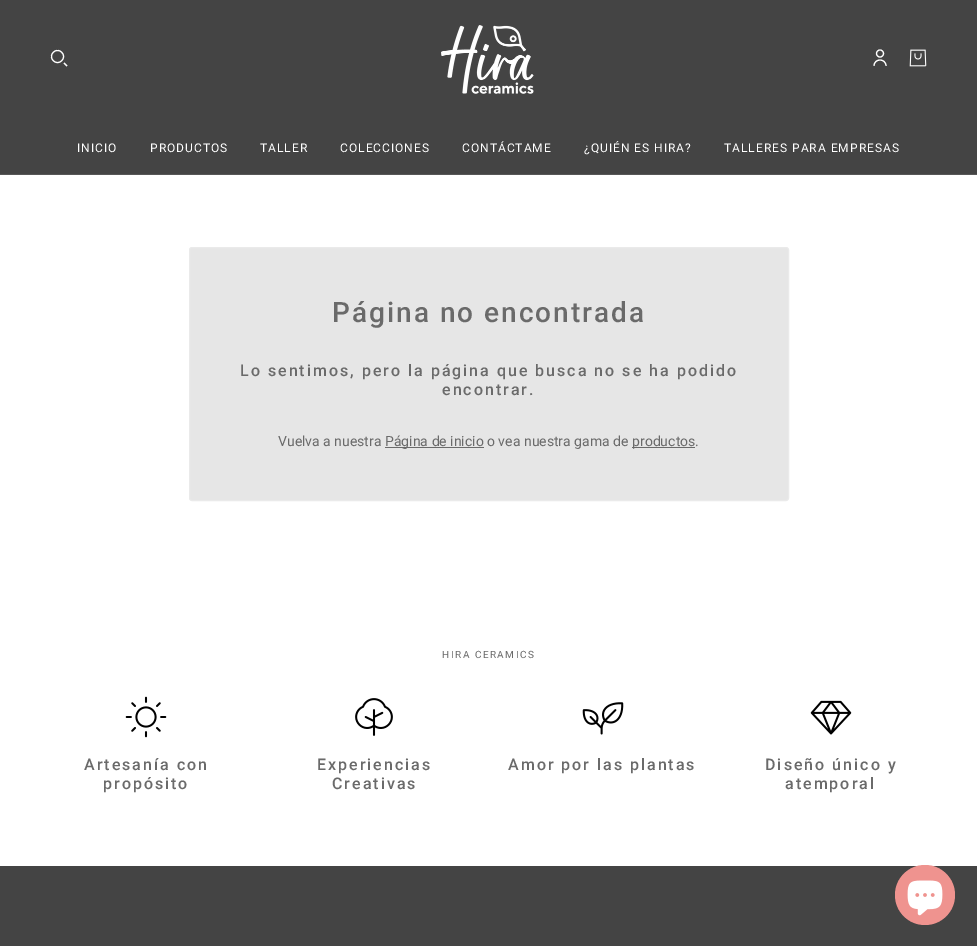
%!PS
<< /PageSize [977 946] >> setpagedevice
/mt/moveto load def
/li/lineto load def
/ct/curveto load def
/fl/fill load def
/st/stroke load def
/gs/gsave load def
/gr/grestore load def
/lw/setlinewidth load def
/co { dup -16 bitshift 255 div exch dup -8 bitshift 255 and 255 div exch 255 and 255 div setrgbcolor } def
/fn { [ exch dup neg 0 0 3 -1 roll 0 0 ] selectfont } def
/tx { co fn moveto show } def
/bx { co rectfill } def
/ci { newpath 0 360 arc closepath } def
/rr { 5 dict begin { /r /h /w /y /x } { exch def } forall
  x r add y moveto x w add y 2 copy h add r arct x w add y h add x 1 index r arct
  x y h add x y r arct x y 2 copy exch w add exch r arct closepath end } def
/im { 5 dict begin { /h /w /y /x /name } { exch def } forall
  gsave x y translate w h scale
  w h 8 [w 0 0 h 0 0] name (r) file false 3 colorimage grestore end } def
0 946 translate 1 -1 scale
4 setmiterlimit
0 0 977 946 16#FFFFFF bx
0 0 977 174 16#444444 bx
16#FFFFFF co
1.1 lw
57.5 56.5 6 ci st
64 63 mt 67 66 li st
(media/1.raw) 441 25 93 69 im
880 53.5 3.5 ci st
874 66 mt 874 58 886 58 886 66 ct st
(media/2.raw) 909 49 18 18 im
0 174 977 1 16#575757 bx
16#E6E6E6 co
189.5 247.5 599 253 2.5 rr gs fl gr
16#EAEAEA co
1 lw
st
385 447 99 1 16#6A6A6A bx
632 447 63 1 16#6A6A6A bx
(media/3.raw) 125 696 42 42 im
(media/4.raw) 355 698 38 38 im
(media/5.raw) 582 702 42 33 im
(media/6.raw) 810 700 42 35 im
0 866 977 80 16#444444 bx
16#EF938F co
925 895 30 ci fl
(media/7.raw) 907 880 36 36 im
/Roboto-Regular 12 fn
16#FFFFFF co
77 152 mt 1 0 (INICIO) ashow
150 152 mt 1 0 (PRODUCTOS) ashow
260 152 mt 1 0 (TALLER) ashow
340 152 mt 1 0 (COLECCIONES) ashow
462 152 mt 1 0 (CONTÁCTAME) ashow
584 152 mt 1 0 (¿QUIÉN ES HIRA?) ashow
724 152 mt 1 0 (TALLERES PARA EMPRESAS) ashow
/Roboto-Medium 28 fn
16#6A6A6A co
332 322 mt 2 0 (Página no encontrada) ashow
/Roboto-Medium 16 fn
240 376 mt 2 0 (Lo sentimos, pero la página que busca no se ha podido) ashow
442 395 mt 2 0 (encontrar.) ashow
(Vuelva a nuestra) 278 446 /Roboto-Regular 14 16#6A6A6A tx
(Página de inicio o vea nuestra gama de) 385 446 /Roboto-Regular 14 16#6A6A6A tx
(productos.) 632 446 /Roboto-Regular 14 16#6A6A6A tx
/Roboto-Regular 10 fn
442 658 mt 1.5 0 (HIRA CERAMICS) ashow
/Roboto-Medium 16 fn
84 770 mt 2 0 (Artesanía con) ashow
103 789 mt 2 0 (propósito) ashow
317 770 mt 2 0 (Experiencias) ashow
332 789 mt 2 0 (Creativas) ashow
508 770 mt 2 0 (Amor por las plantas) ashow
765 770 mt 2 0 (Diseño único y) ashow
785 789 mt 2 0 (atemporal) ashow
showpage
